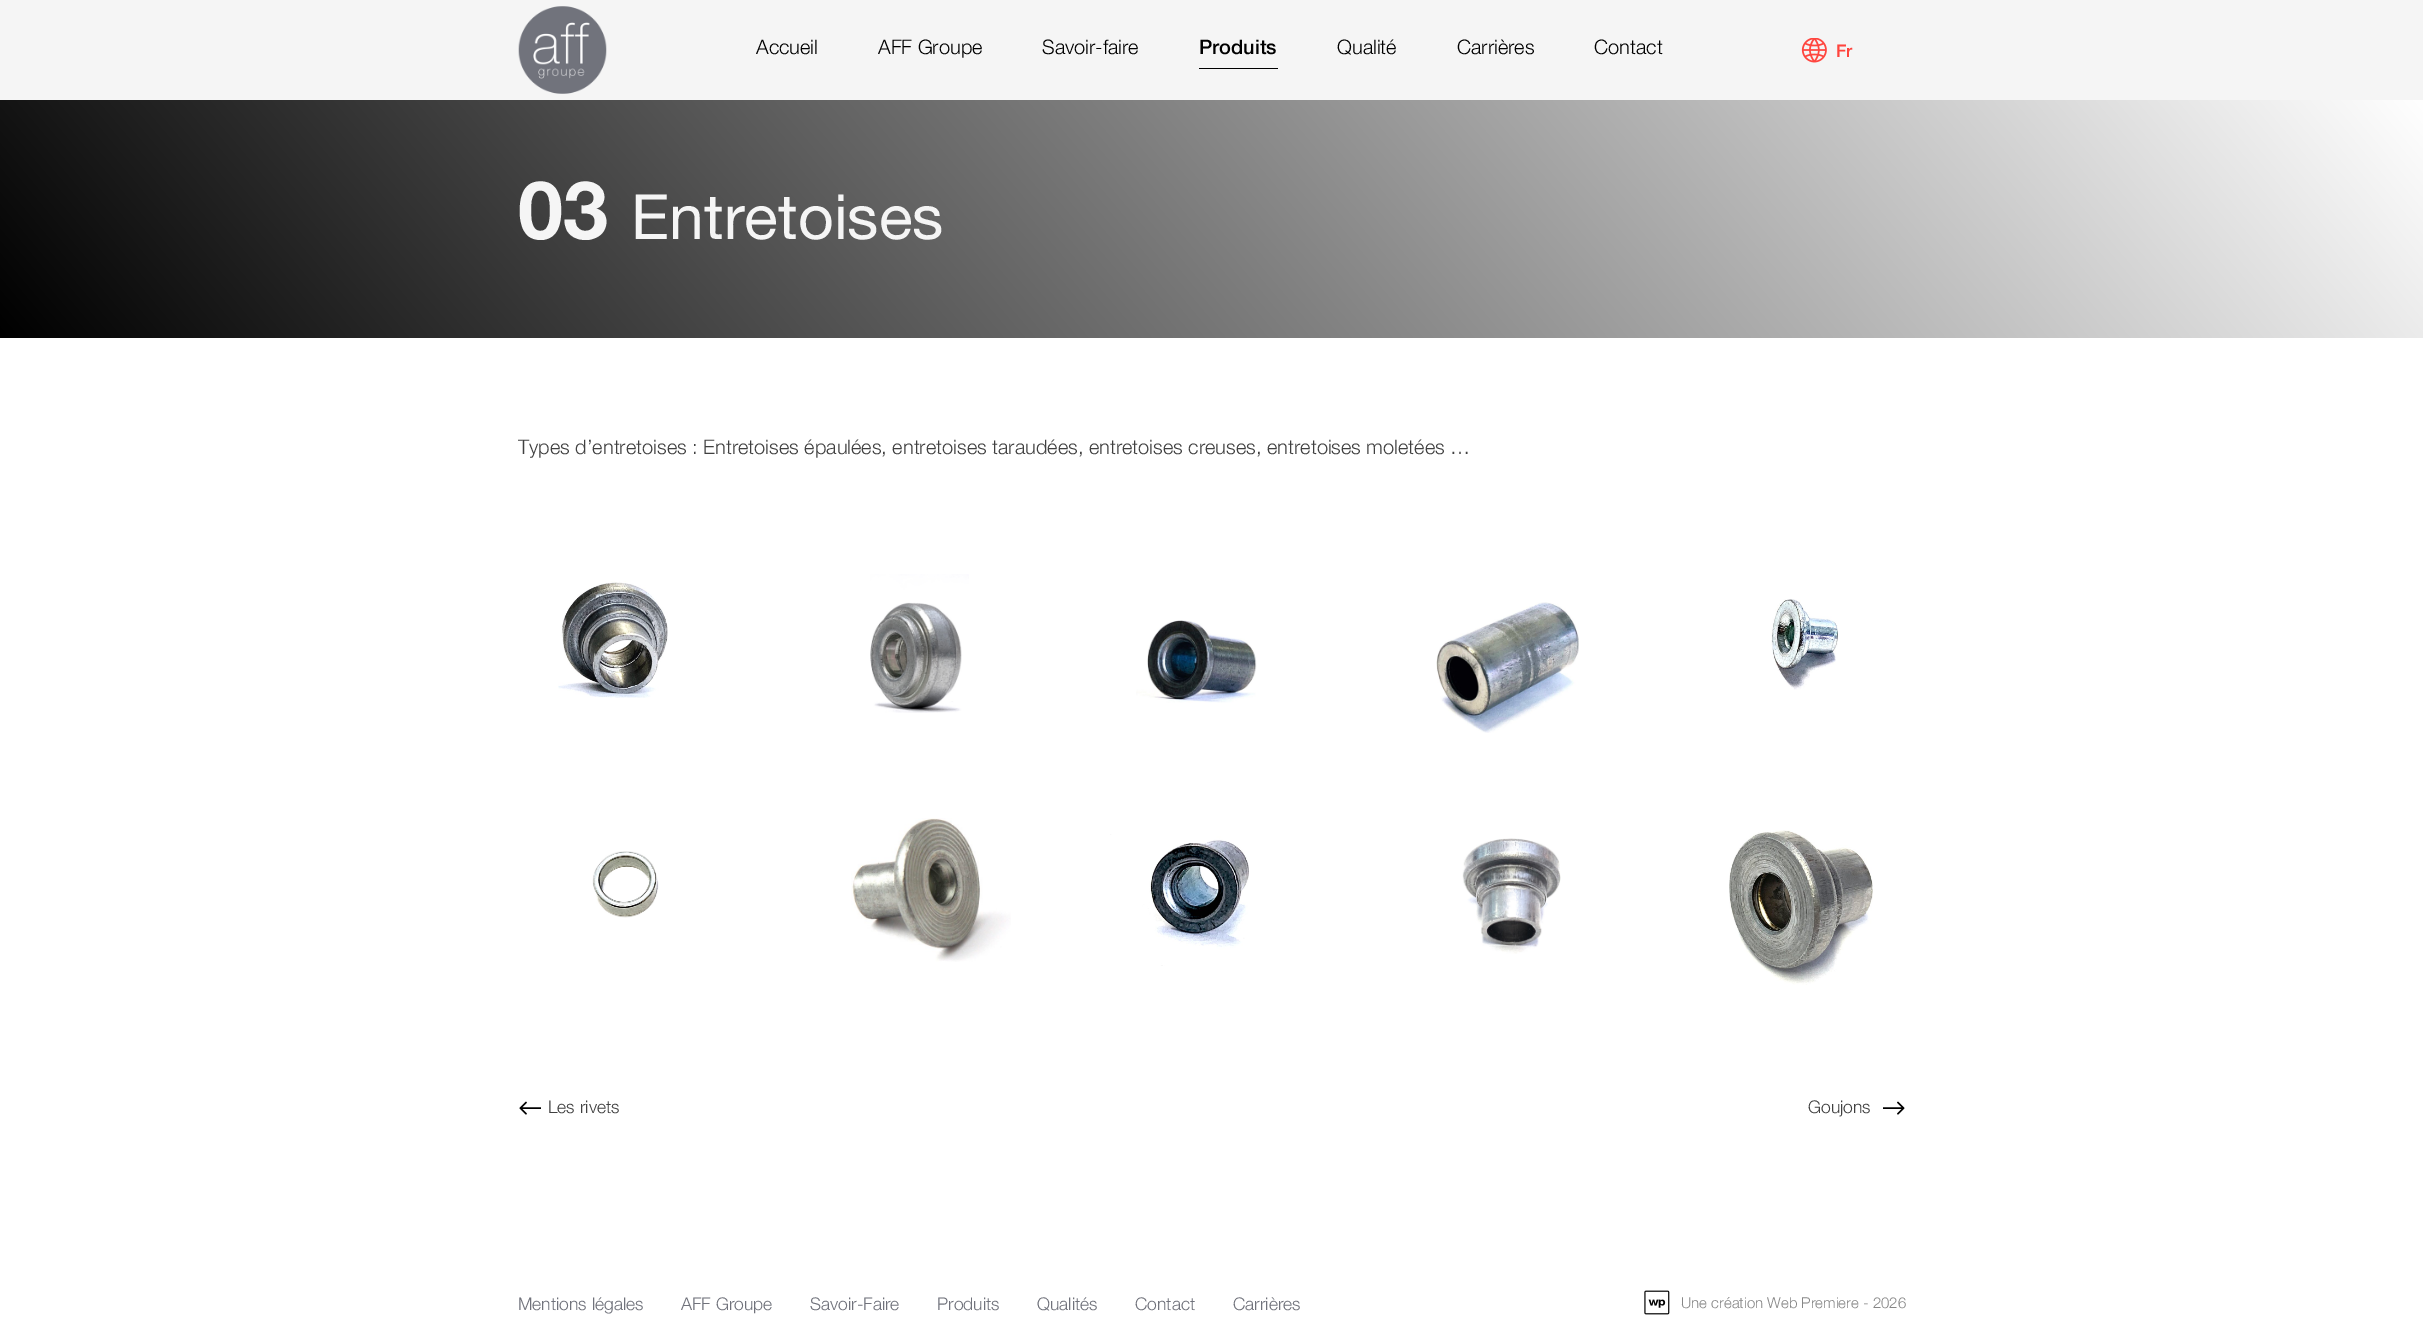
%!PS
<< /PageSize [2423 1335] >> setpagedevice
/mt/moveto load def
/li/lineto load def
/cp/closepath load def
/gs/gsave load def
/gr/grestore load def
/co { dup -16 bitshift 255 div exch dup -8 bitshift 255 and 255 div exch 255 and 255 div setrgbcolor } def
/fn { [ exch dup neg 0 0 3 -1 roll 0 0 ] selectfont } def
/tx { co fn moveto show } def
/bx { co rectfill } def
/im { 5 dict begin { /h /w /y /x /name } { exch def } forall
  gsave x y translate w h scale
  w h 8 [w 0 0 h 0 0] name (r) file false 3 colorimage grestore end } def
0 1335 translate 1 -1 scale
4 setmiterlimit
0 0 2423 1335 16#FFFFFF bx
0 0 2423 100 16#F5F5F5 bx
(media/1.raw) 518 6 89 88 im
1199 68 79 1 16#000000 bx
(media/2.raw) 1801 38 26 25 im
gs 0 100 mt 2423 100 li 2423 338 li 0 338 li cp clip newpath
<< /ShadingType 2 /ColorSpace /DeviceRGB /Coords [442 865 1982 -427] /Extend [true true] /Function << /FunctionType 2 /Domain [0 1] /C0 [0 0 0] /C1 [1 1 1] /N 1 >> >> shfill gr
(media/3.raw) 558 581 110 117 im
(media/4.raw) 870 574 99 139 im
(media/5.raw) 1136 620 121 83 im
(media/6.raw) 1436 602 143 131 im
(media/7.raw) 1771 599 67 91 im
(media/8.raw) 592 851 67 67 im
(media/9.raw) 851 818 160 144 im
(media/10.raw) 1110 834 139 132 im
(media/11.raw) 1462 838 99 116 im
(media/12.raw) 1729 830 144 155 im
(media/13.raw) 519 1101 22 14 im
(media/14.raw) 1883 1101 22 14 im
(media/15.raw) 1644 1290 26 25 im
(Accueil) 756 54 /HelveticaNeue-Light 20 16#000000 tx
(AFF Groupe) 878 54 /HelveticaNeue-Light 20 16#000000 tx
(Savoir-faire) 1042 54 /HelveticaNeue-Light 20 16#000000 tx
(Produits) 1199 54 /HelveticaNeue-Medium 20 16#000000 tx
(Qualité) 1337 54 /HelveticaNeue-Light 20 16#000000 tx
(Carrières) 1457 54 /HelveticaNeue-Light 20 16#000000 tx
(Contact) 1594 54 /HelveticaNeue-Light 20 16#000000 tx
(Fr) 1836 57 /HelveticaNeue-Medium 17.5 16#FF443D tx
(03) 518 239 /HelveticaNeue-Bold 81 16#F5F5F5 tx
(Entretoises) 631 239 /HelveticaNeue-Regular 62.5 16#F5F5F5 tx
(Types d’entretoises : Entretoises épaulées, entretoises taraudées, entretoises creuses, entretoises moletées …) 518 454 /HelveticaNeue-Light 20 16#404040 tx
(Les rivets) 548 1113 /HelveticaNeue-Light 17.5 16#404040 tx
(Goujons) 1808 1113 /HelveticaNeue-Light 17.5 16#404040 tx
(Mentions légales) 518 1310 /HelveticaNeue-Light 17.5 16#70727B tx
(AFF Groupe) 681 1310 /HelveticaNeue-Light 17.5 16#70727B tx
(Savoir-Faire) 810 1310 /HelveticaNeue-Light 17.5 16#70727B tx
(Produits) 937 1310 /HelveticaNeue-Light 17.5 16#70727B tx
(Qualités) 1037 1310 /HelveticaNeue-Light 17.5 16#70727B tx
(Contact) 1135 1310 /HelveticaNeue-Light 17.5 16#70727B tx
(Carrières) 1233 1310 /HelveticaNeue-Light 17.5 16#70727B tx
(Une création Web Premiere - 2026) 1681 1308 /HelveticaNeue-Light 15 16#868686 tx
showpage
